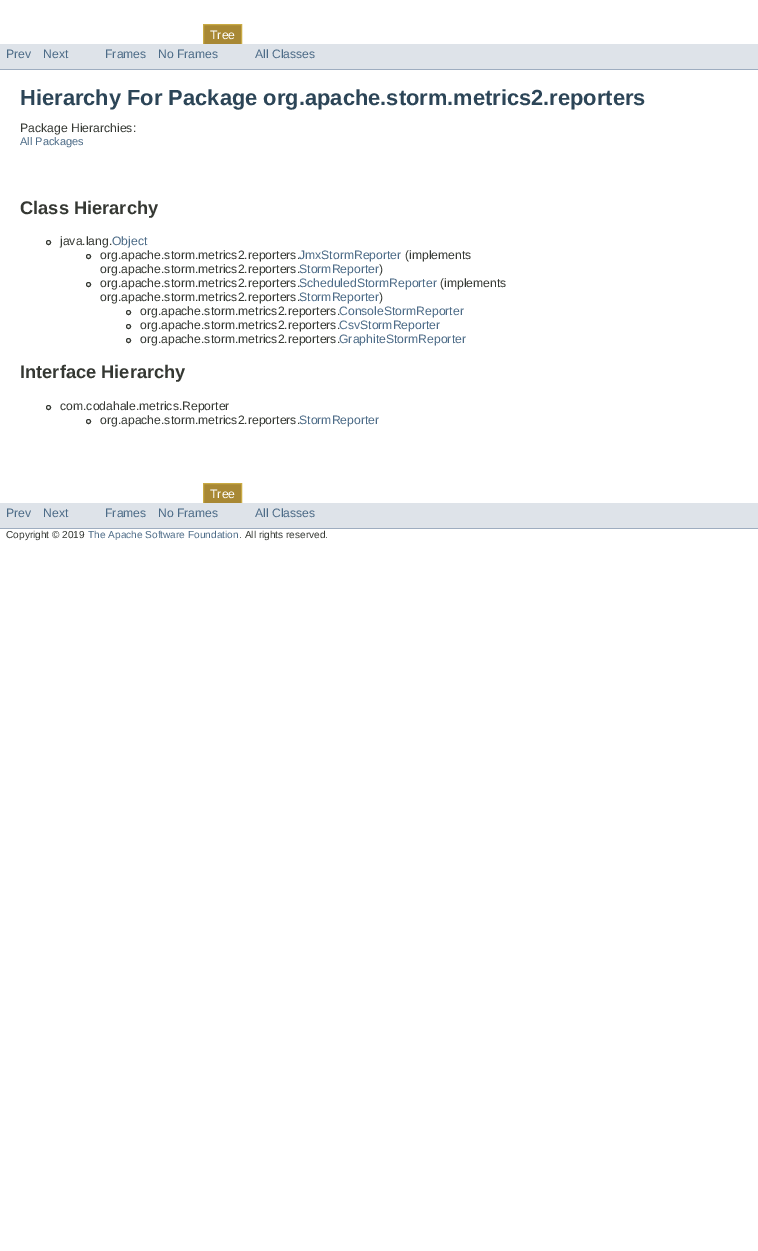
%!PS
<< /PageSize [758 1251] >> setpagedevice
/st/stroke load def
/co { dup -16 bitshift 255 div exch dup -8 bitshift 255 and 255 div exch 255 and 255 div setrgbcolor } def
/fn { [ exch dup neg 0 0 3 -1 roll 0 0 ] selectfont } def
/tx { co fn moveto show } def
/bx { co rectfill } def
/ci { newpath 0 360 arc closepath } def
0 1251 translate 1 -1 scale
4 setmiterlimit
0 0 758 1251 16#FFFFFF bx
204 25 37 19 16#A88834 bx
16#C9AA44 co
203.5 24.5 38 21 rectstroke
0 44 758 25 16#DEE3E9 bx
0 69 758 1 16#9EADC0 bx
16#353833 co
48.5 242.5 2 ci st
88.5 256.5 2 ci st
88.5 284.5 2 ci st
128.5 312.5 2 ci st
128.5 326.5 2 ci st
128.5 340.5 2 ci st
48.5 407.5 2 ci st
88.5 421.5 2 ci st
204 484 37 19 16#A88834 bx
16#C9AA44 co
203.5 483.5 38 21 rectstroke
0 503 758 25 16#DEE3E9 bx
0 528 758 1 16#9EADC0 bx
(Tree) 210 39 /LiberationSans-Regular 12.2 16#FFFFFF tx
(Prev) 6 58 /LiberationSans-Regular 12.2 16#4C6B87 tx
(Next) 43 58 /LiberationSans-Regular 12.2 16#4C6B87 tx
(Frames) 105 58 /LiberationSans-Regular 12.2 16#4C6B87 tx
(No Frames) 158 58 /LiberationSans-Regular 12.2 16#4C6B87 tx
(All Classes) 255 58 /LiberationSans-Regular 12.2 16#4C6B87 tx
(Hierarchy For Package org.apache.storm.metrics2.reporters) 20 105 /LiberationSans-Bold 21.9 16#2C4557 tx
(Package Hierarchies:) 20 132 /LiberationSans-Regular 12.2 16#353833 tx
(All Packages) 20 145 /LiberationSans-Regular 11 16#4C6B87 tx
(Class Hierarchy) 20 214 /LiberationSans-Bold 18.25 16#353833 tx
(java.lang.) 60 245 /LiberationSans-Regular 12.2 16#353833 tx
(Object) 112 245 /LiberationSans-Regular 12.2 16#4C6B87 tx
(org.apache.storm.metrics2.reporters.) 100 259 /LiberationSans-Regular 12.2 16#353833 tx
(JmxStormReporter) 299 259 /LiberationSans-Regular 12.2 16#4C6B87 tx
(\(implements) 405 259 /LiberationSans-Regular 12.2 16#353833 tx
(org.apache.storm.metrics2.reporters.) 100 273 /LiberationSans-Regular 12.2 16#353833 tx
(StormReporter) 299 273 /LiberationSans-Regular 12.2 16#4C6B87 tx
(\)) 379 273 /LiberationSans-Regular 12.2 16#353833 tx
(org.apache.storm.metrics2.reporters.) 100 287 /LiberationSans-Regular 12.2 16#353833 tx
(ScheduledStormReporter) 299 287 /LiberationSans-Regular 12.2 16#4C6B87 tx
(\(implements) 440 287 /LiberationSans-Regular 12.2 16#353833 tx
(org.apache.storm.metrics2.reporters.) 100 301 /LiberationSans-Regular 12.2 16#353833 tx
(StormReporter) 299 301 /LiberationSans-Regular 12.2 16#4C6B87 tx
(\)) 379 301 /LiberationSans-Regular 12.2 16#353833 tx
(org.apache.storm.metrics2.reporters.) 140 315 /LiberationSans-Regular 12.2 16#353833 tx
(ConsoleStormReporter) 339 315 /LiberationSans-Regular 12.2 16#4C6B87 tx
(org.apache.storm.metrics2.reporters.) 140 329 /LiberationSans-Regular 12.2 16#353833 tx
(CsvStormReporter) 339 329 /LiberationSans-Regular 12.2 16#4C6B87 tx
(org.apache.storm.metrics2.reporters.) 140 343 /LiberationSans-Regular 12.2 16#353833 tx
(GraphiteStormReporter) 339 343 /LiberationSans-Regular 12.2 16#4C6B87 tx
(Interface Hierarchy) 20 378 /LiberationSans-Bold 18.25 16#353833 tx
(com.codahale.metrics.Reporter) 60 410 /LiberationSans-Regular 12.2 16#353833 tx
(org.apache.storm.metrics2.reporters.) 100 424 /LiberationSans-Regular 12.2 16#353833 tx
(StormReporter) 299 424 /LiberationSans-Regular 12.2 16#4C6B87 tx
(Tree) 210 498 /LiberationSans-Regular 12.2 16#FFFFFF tx
(Prev) 6 517 /LiberationSans-Regular 12.2 16#4C6B87 tx
(Next) 43 517 /LiberationSans-Regular 12.2 16#4C6B87 tx
(Frames) 105 517 /LiberationSans-Regular 12.2 16#4C6B87 tx
(No Frames) 158 517 /LiberationSans-Regular 12.2 16#4C6B87 tx
(All Classes) 255 517 /LiberationSans-Regular 12.2 16#4C6B87 tx
(Copyright © 2019) 6 538 /LiberationSans-Regular 10.1 16#353833 tx
(The Apache Software Foundation) 88 538 /LiberationSans-Regular 10.1 16#4C6B87 tx
(. All rights reserved.) 239 538 /LiberationSans-Regular 10.1 16#353833 tx
showpage
